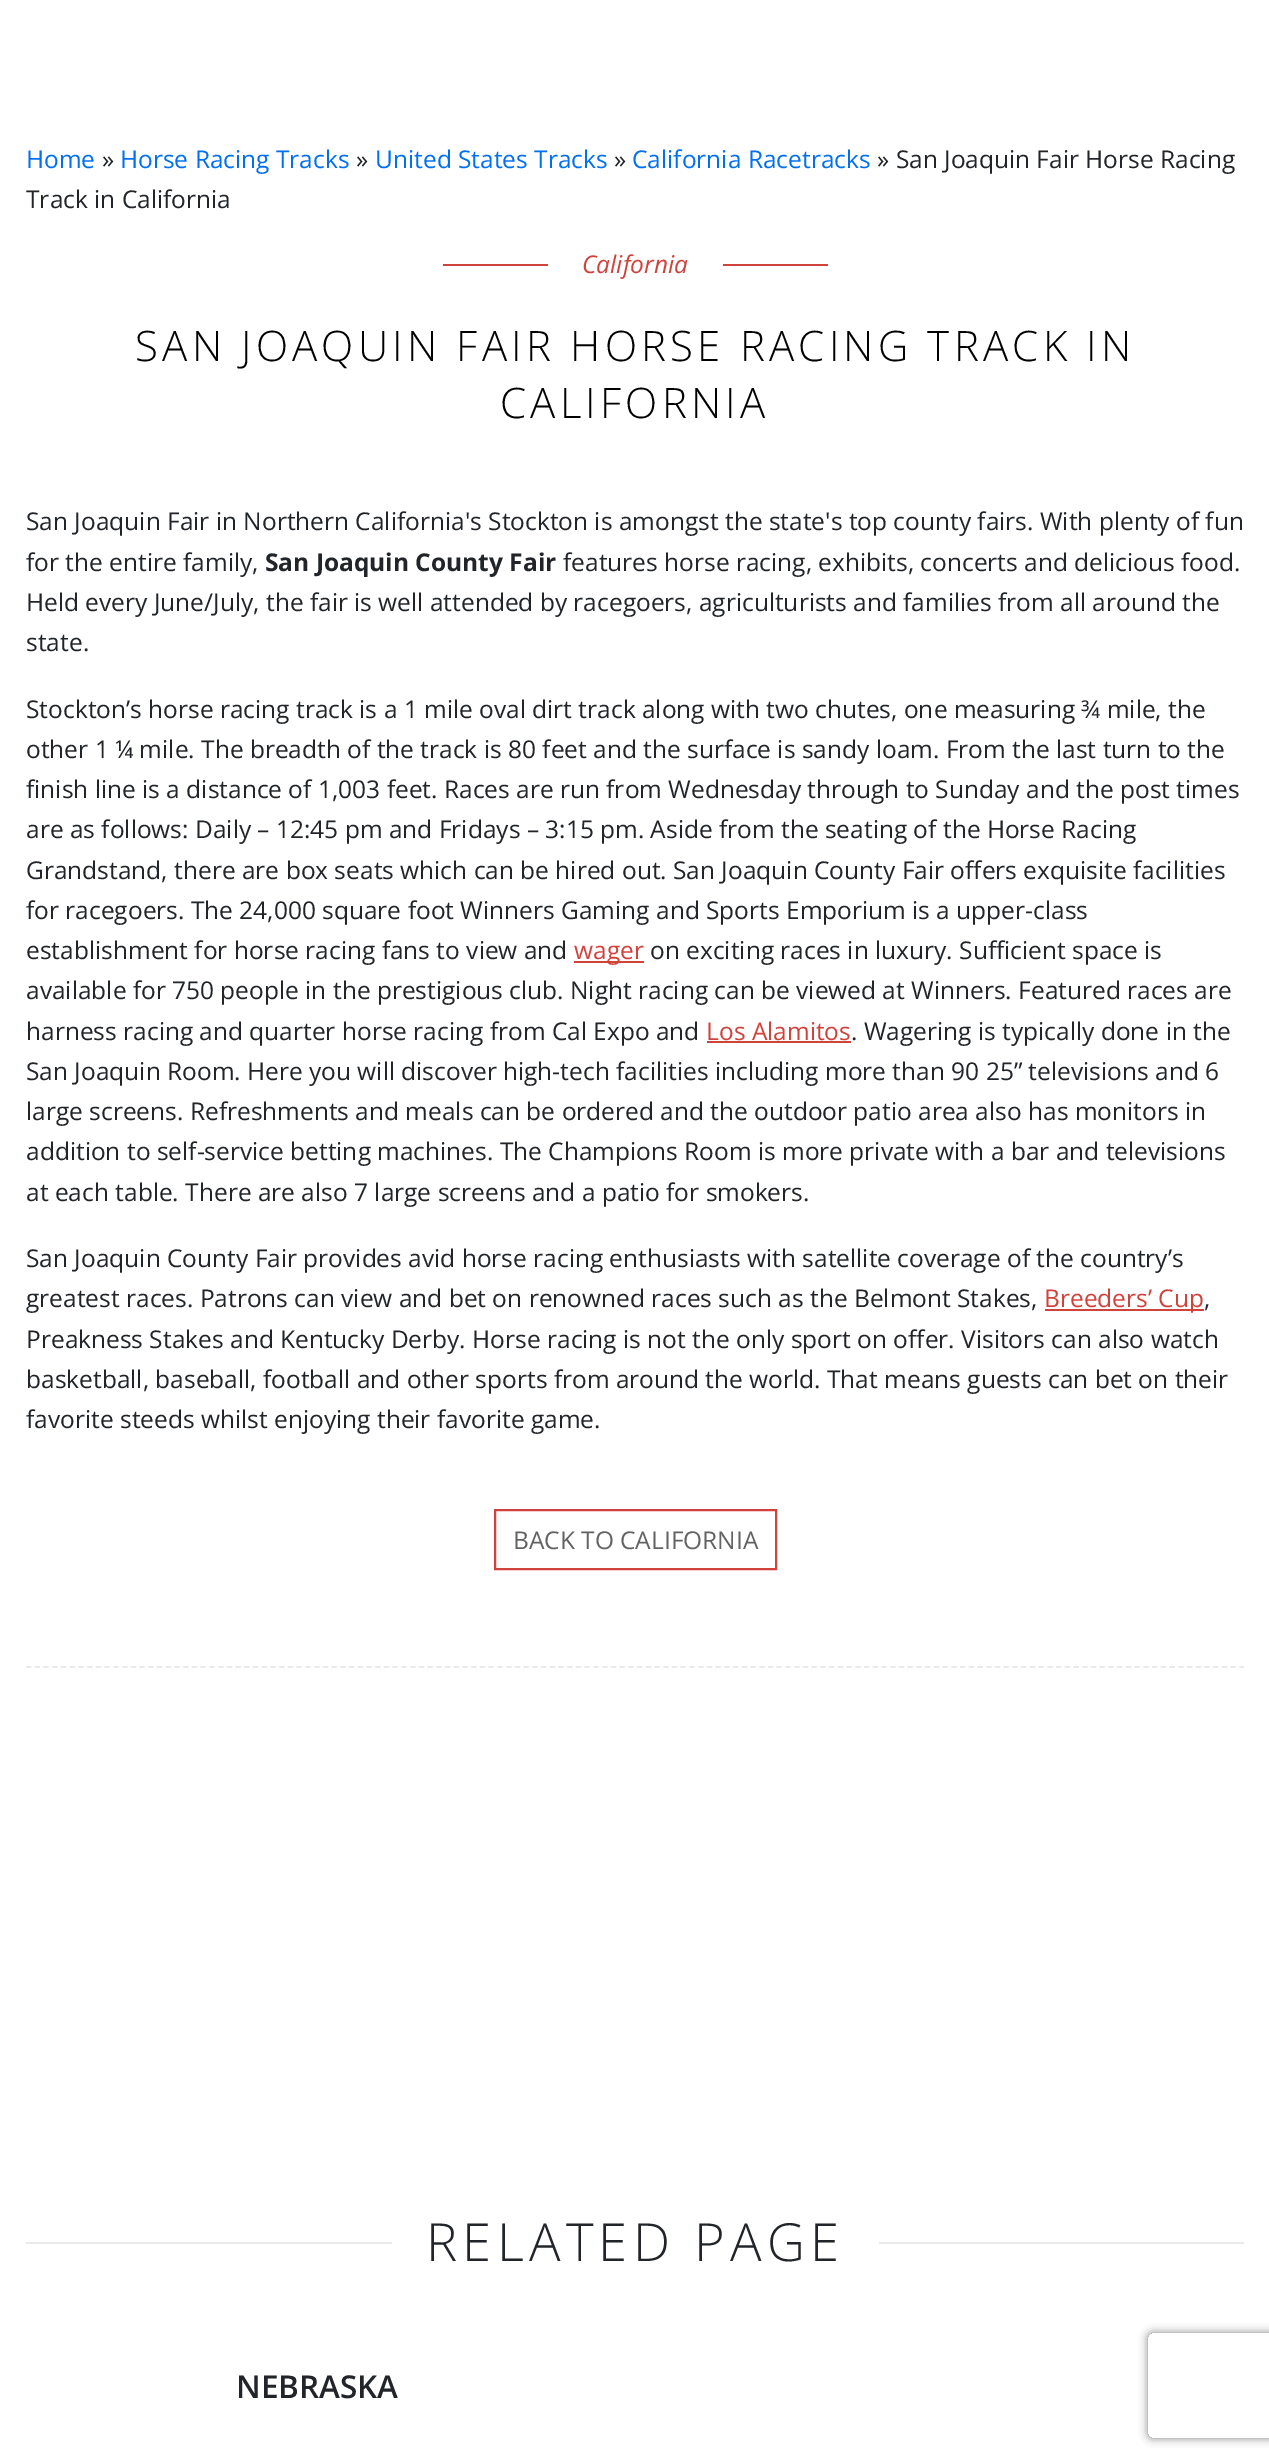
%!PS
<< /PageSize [1269 2461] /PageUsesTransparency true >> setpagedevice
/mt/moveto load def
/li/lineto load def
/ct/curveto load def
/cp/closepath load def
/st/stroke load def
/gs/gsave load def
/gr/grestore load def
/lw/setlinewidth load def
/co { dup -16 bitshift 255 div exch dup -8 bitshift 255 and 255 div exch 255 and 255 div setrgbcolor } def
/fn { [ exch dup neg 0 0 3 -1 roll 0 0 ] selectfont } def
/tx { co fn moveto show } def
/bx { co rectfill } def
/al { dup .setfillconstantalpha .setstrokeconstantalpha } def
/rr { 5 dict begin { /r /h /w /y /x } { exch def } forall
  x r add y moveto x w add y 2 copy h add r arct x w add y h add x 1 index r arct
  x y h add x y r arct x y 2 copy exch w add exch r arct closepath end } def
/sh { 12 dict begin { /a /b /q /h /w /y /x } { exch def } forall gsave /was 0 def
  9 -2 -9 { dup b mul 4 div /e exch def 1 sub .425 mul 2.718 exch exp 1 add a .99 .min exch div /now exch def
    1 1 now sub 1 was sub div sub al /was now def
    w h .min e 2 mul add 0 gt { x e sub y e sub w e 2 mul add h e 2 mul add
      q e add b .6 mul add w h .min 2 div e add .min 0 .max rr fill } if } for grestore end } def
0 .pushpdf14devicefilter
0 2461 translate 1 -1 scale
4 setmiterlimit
0 0 1269 2461 16#FFFFFF bx
16#EAEAEA co
1.8 lw
[5.25 3.48] 0 setdash
26 1667 mt 1244 1667 li st
443 264 105 2 16#D0423C bx
723 264 105 2 16#D0423C bx
574 961 70 2 16#D0423C bx
707 1041 144 2 16#D0423C bx
1045 1309 159 2 16#D0423C bx
2 lw
[] 0 setdash
495 1510 281 59 rectstroke
26 2242 1218 2 16#EAEAEA bx
392 2242 487 2 16#FFFFFF bx
gs
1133 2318 mt 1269 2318 li 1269 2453 li 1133 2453 li cp 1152 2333 mt 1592 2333 li 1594 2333 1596 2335 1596 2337 ct 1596 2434 li 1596 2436 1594 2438 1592 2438 ct 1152 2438 li 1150 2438 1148 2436 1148 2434 ct 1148 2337 li 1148 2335 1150 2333 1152 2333 ct cp eoclip newpath
16#808080 co
1148 2333 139 105 4 4.5 1 sh
gr
(Home) 26 168 /OpenSans-Regular 24.5 16#006FF0 tx
(») 102 168 /OpenSans-Regular 24.5 16#212529 tx
(Horse Racing Tracks) 120 168 /OpenSans-Regular 24.5 16#006FF0 tx
(») 356 168 /OpenSans-Regular 24.5 16#212529 tx
(United States Tracks) 375 168 /OpenSans-Regular 24.5 16#006FF0 tx
(») 614 168 /OpenSans-Regular 24.5 16#212529 tx
(California Racetracks) 632 168 /OpenSans-Regular 24.5 16#006FF0 tx
(» San Joaquin Fair Horse Racing) 877 168 /OpenSans-Regular 24.5 16#212529 tx
(Track in California) 26 208 /OpenSans-Regular 24.5 16#212529 tx
(California) 582 273 /OpenSans-Italic 24.5 16#D0423C tx
/OpenSans-Light 42 fn
16#000000 co
135 361 mt 4.2 0 (SAN JOAQUIN FAIR HORSE RACING TRACK IN) ashow
500 418 mt 4.2 0 (CALIFORNIA) ashow
(San Joaquin Fair in Northern California's Stockton is amongst the state's top county fairs. With plenty of fun) 26 530 /OpenSans-Regular 24.5 16#212529 tx
(for the entire family,) 26 571 /OpenSans-Regular 24.5 16#212529 tx
(San Joaquin County Fair) 265 571 /OpenSans-Bold 24.5 16#212529 tx
(features horse racing, exhibits, concerts and delicious food.) 563 571 /OpenSans-Regular 24.5 16#212529 tx
(Held every June/July, the fair is well attended by racegoers, agriculturists and families from all around the) 26 611 /OpenSans-Regular 24.5 16#212529 tx
(state.) 26 651 /OpenSans-Regular 24.5 16#212529 tx
(Stockton’s horse racing track is a 1 mile oval dirt track along with two chutes, one measuring ¾ mile, the) 26 718 /OpenSans-Regular 24.5 16#212529 tx
(other 1 ¼ mile. The breadth of the track is 80 feet and the surface is sandy loam. From the last turn to the) 26 758 /OpenSans-Regular 24.5 16#212529 tx
(finish line is a distance of 1,003 feet. Races are run from Wednesday through to Sunday and the post times) 26 798 /OpenSans-Regular 24.5 16#212529 tx
(are as follows: Daily – 12:45 pm and Fridays – 3:15 pm. Aside from the seating of the Horse Racing) 26 838 /OpenSans-Regular 24.5 16#212529 tx
(Grandstand, there are box seats which can be hired out. San Joaquin County Fair offers exquisite facilities) 26 879 /OpenSans-Regular 24.5 16#212529 tx
(for racegoers. The 24,000 square foot Winners Gaming and Sports Emporium is a upper-class) 26 919 /OpenSans-Regular 24.5 16#212529 tx
(establishment for horse racing fans to view and) 26 959 /OpenSans-Regular 24.5 16#212529 tx
(wager) 574 959 /OpenSans-Regular 24.5 16#D0423C tx
(on exciting races in luxury. Sufficient space is) 650 959 /OpenSans-Regular 24.5 16#212529 tx
(available for 750 people in the prestigious club. Night racing can be viewed at Winners. Featured races are) 26 999 /OpenSans-Regular 24.5 16#212529 tx
(harness racing and quarter horse racing from Cal Expo and) 26 1040 /OpenSans-Regular 24.5 16#212529 tx
(Los Alamitos) 706 1040 /OpenSans-Regular 24.5 16#D0423C tx
(. Wagering is typically done in the) 851 1040 /OpenSans-Regular 24.5 16#212529 tx
(San Joaquin Room. Here you will discover high-tech facilities including more than 90 25” televisions and 6) 26 1080 /OpenSans-Regular 24.5 16#212529 tx
(large screens. Refreshments and meals can be ordered and the outdoor patio area also has monitors in) 26 1120 /OpenSans-Regular 24.5 16#212529 tx
(addition to self-service betting machines. The Champions Room is more private with a bar and televisions) 26 1160 /OpenSans-Regular 24.5 16#212529 tx
(at each table. There are also 7 large screens and a patio for smokers.) 26 1201 /OpenSans-Regular 24.5 16#212529 tx
(San Joaquin County Fair provides avid horse racing enthusiasts with satellite coverage of the country’s) 26 1267 /OpenSans-Regular 24.5 16#212529 tx
(greatest races. Patrons can view and bet on renowned races such as the Belmont Stakes,) 26 1307 /OpenSans-Regular 24.5 16#212529 tx
(Breeders’ Cup) 1044 1307 /OpenSans-Regular 24.5 16#D0423C tx
(,) 1204 1307 /OpenSans-Regular 24.5 16#212529 tx
(Preakness Stakes and Kentucky Derby. Horse racing is not the only sport on offer. Visitors can also watch) 26 1348 /OpenSans-Regular 24.5 16#212529 tx
(basketball, baseball, football and other sports from around the world. That means guests can bet on their) 26 1388 /OpenSans-Regular 24.5 16#212529 tx
(favorite steeds whilst enjoying their favorite game.) 26 1428 /OpenSans-Regular 24.5 16#212529 tx
(BACK TO CALIFORNIA) 513 1549 /OpenSans-Regular 24.5 16#636363 tx
/OpenSans-Light 52.5 fn
16#212529 co
426 2261 mt 5.25 0 (RELATED PAGE) ashow
(NEBRASKA) 236 2398 /OpenSans-SemiBold 31.5 16#212529 tx
.poppdf14devicefilter showpage
